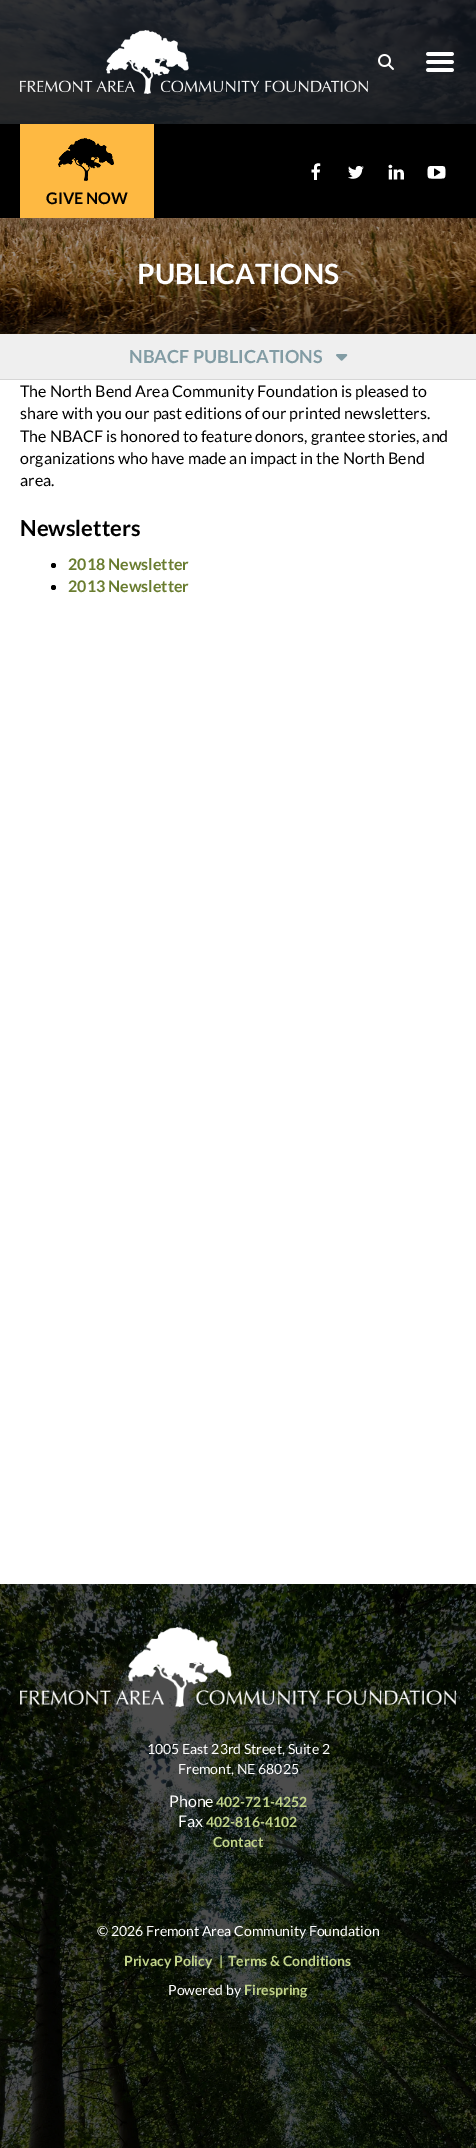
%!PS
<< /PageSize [476 2148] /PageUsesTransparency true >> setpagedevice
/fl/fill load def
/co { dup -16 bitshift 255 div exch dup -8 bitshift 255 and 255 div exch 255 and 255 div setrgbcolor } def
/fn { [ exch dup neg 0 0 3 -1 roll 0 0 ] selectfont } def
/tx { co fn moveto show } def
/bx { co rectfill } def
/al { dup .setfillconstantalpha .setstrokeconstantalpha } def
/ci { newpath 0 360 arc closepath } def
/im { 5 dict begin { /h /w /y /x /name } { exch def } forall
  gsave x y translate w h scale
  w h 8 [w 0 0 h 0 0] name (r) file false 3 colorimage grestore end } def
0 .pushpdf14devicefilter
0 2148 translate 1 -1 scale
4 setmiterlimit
0 0 476 2148 16#FFFFFF bx
(media/9.raw) 0 0 476 334 im
0.8 al
0 0 476 124 16#000000 bx
1 al
(media/1.raw) 20 30 348 64 im
(media/2.raw) 378 54 16 16 im
(media/3.raw) 426 52 28 20 im
0 124 476 94 16#000000 bx
(media/4.raw) 311 163 10 17 im
(media/5.raw) 348 166 16 13 im
(media/6.raw) 388 164 16 16 im
(media/7.raw) 427 166 19 13 im
20 124 134 94 16#FEB942 bx
(media/8.raw) 58 138 56 43 im
0 334 476 45 16#EFEFEF bx
0 379 476 1 16#D6D6D6 bx
(media/10.raw) 336 354 12 7 im
16#000000 co
53.5 565.5 2.5 ci fl
53.5 587.5 2.5 ci fl
(media/11.raw) 0 1584 476 564 im
(media/12.raw) 20 1627 436 80 im
(GIVE NOW) 46 204 /Lato-Bold 16 16#000000 tx
(PUBLICATIONS) 137 284 /Lato-Bold 28 16#FFFFFF tx
(NBACF PUBLICATIONS) 129 363 /Lato-Bold 18 16#829CA4 tx
(The North Bend Area Community Foundation is pleased to) 20 397 /Lato-Regular 16 16#000000 tx
(share with you our past editions of our printed newsletters.) 20 419 /Lato-Regular 16 16#000000 tx
(The NBACF is honored to feature donors, grantee stories, and) 20 442 /Lato-Regular 16 16#000000 tx
(organizations who have made an impact in the North Bend) 20 464 /Lato-Regular 16 16#000000 tx
(area.) 20 486 /Lato-Regular 16 16#000000 tx
(Newsletters) 20 536 /Lato-Bold 22 16#000000 tx
(2018 Newsletter) 68 570 /Lato-Bold 16 16#697C2F tx
(2013 Newsletter) 68 592 /Lato-Bold 16 16#697C2F tx
(1005 East 23rd Street, Suite 2) 147 1754 /Lato-Regular 14 16#FFFFFF tx
(Fremont, NE 68025) 178 1774 /Lato-Regular 14 16#FFFFFF tx
(Phone) 169 1807 /Lato-Regular 16 16#FFFFFF tx
(402-721-4252) 216 1807 /Lato-Bold 14 16#C1D38A tx
(Fax) 178 1827 /Lato-Regular 16 16#FFFFFF tx
(402-816-4102) 206 1827 /Lato-Bold 14 16#C1D38A tx
(Contact) 213 1847 /Lato-Bold 14 16#C1D38A tx
(© 2026 Fremont Area Community Foundation) 97 1936 /Lato-Regular 14 16#FFFFFF tx
(Privacy Policy) 124 1966 /Lato-Bold 14 16#C1D38A tx
(|) 219 1966 /Lato-Bold 14 16#C1D38A tx
(Terms & Conditions) 228 1966 /Lato-Bold 14 16#C1D38A tx
(Powered by) 168 1995 /Lato-Regular 14 16#FFFFFF tx
(Firespring) 244 1995 /Lato-Bold 14 16#C1D38A tx
.poppdf14devicefilter showpage
